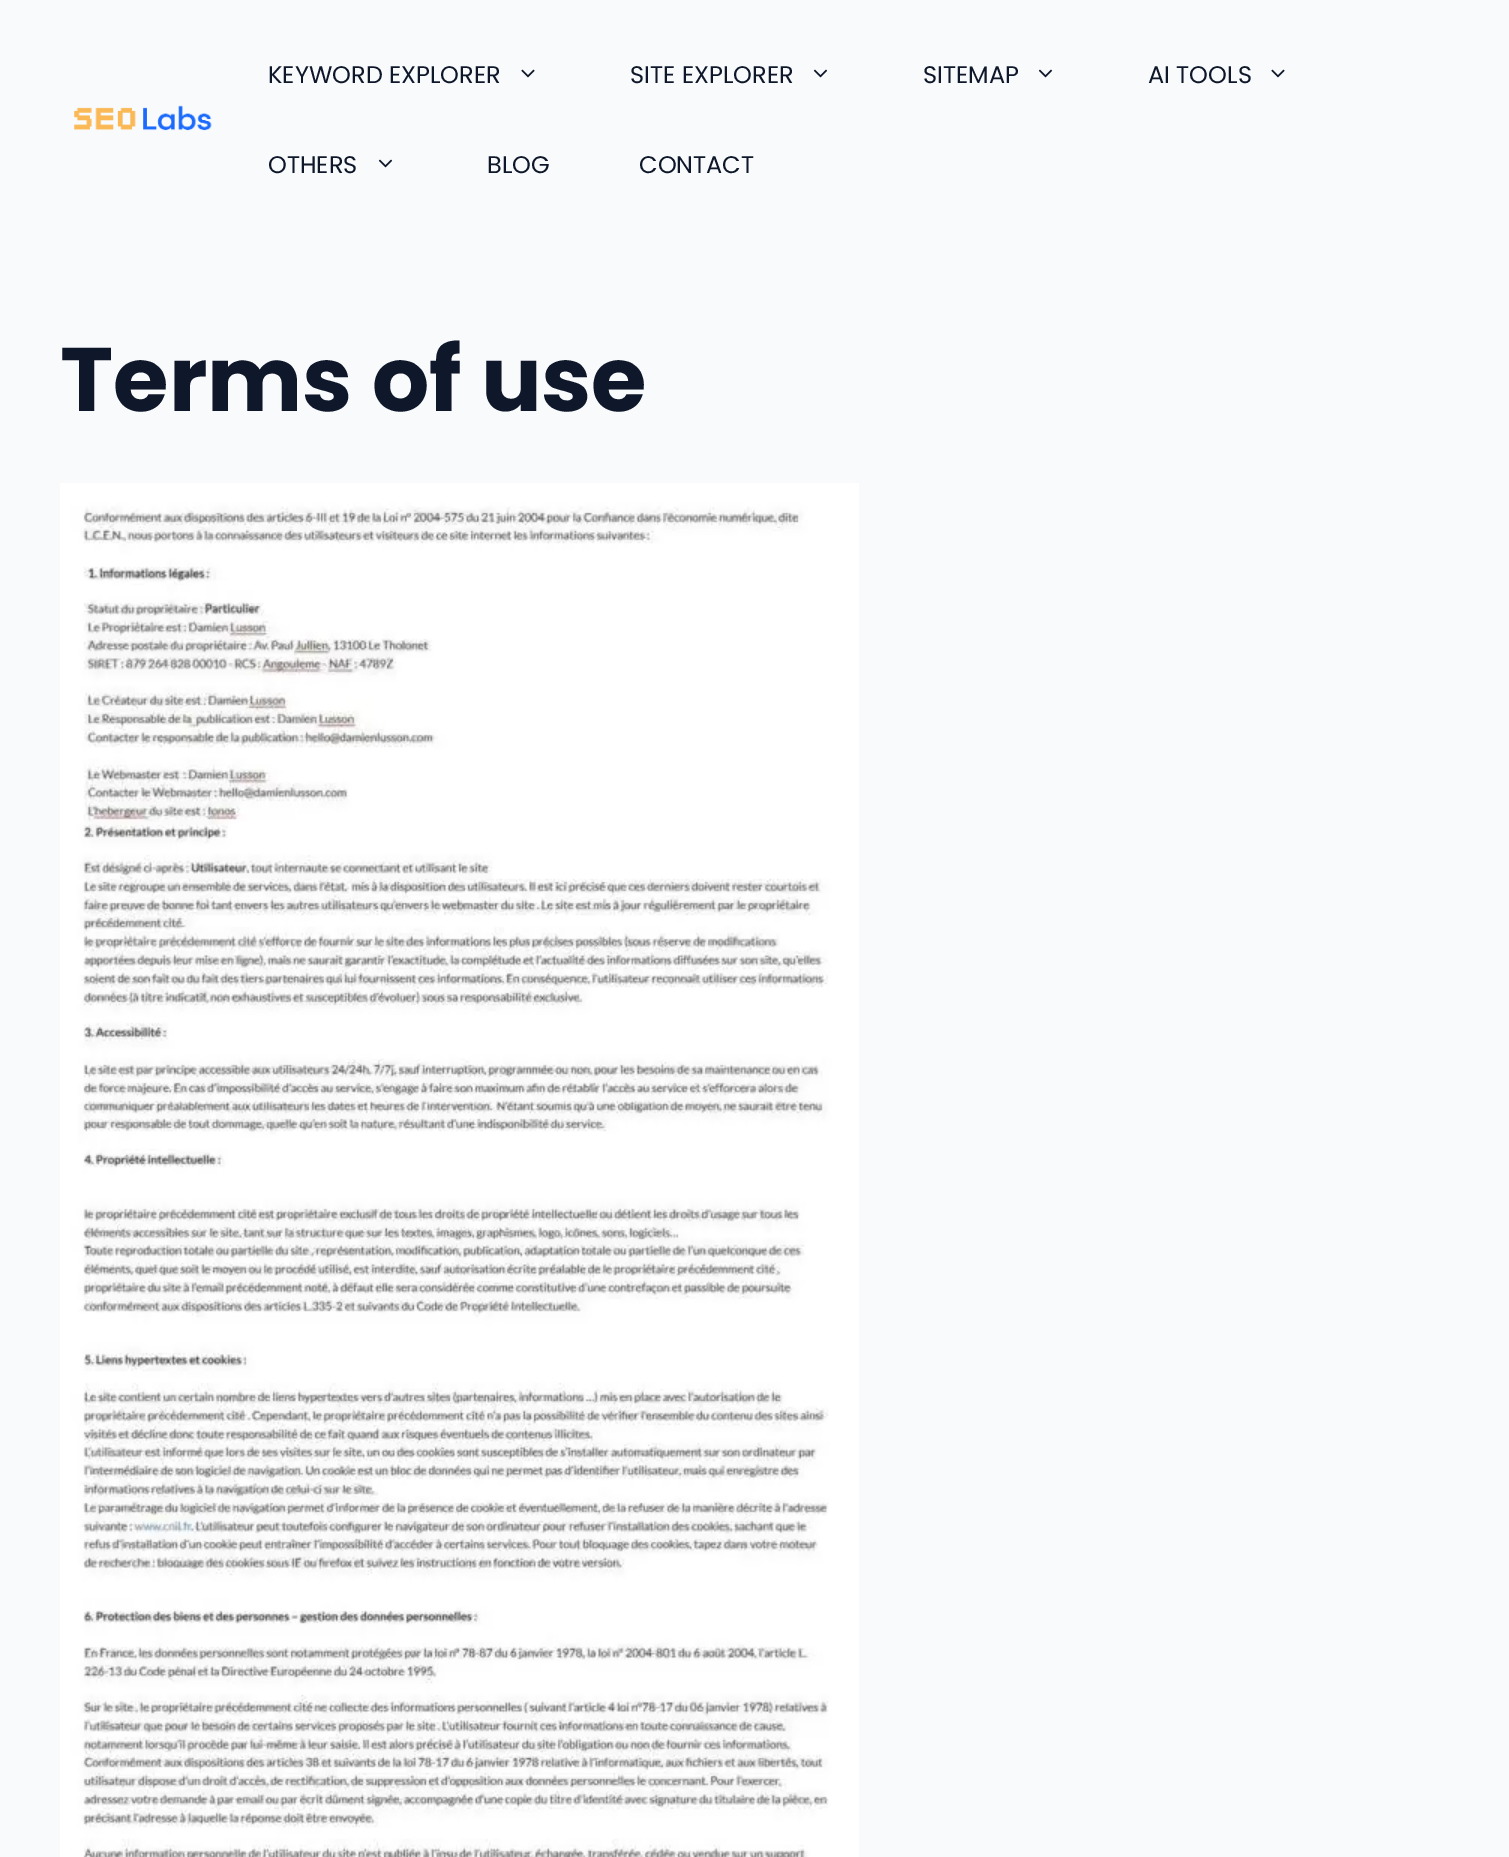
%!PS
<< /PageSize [1509 1857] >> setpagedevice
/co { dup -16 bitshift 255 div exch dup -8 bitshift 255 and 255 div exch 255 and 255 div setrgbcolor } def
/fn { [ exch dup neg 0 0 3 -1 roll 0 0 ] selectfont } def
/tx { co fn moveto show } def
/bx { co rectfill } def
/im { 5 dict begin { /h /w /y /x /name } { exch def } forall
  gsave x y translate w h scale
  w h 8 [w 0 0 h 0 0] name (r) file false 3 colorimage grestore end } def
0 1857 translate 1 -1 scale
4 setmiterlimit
0 0 1509 1857 16#F8FAFC bx
(media/1.raw) 74 105 138 26 im
(media/2.raw) 521 69 14 9 im
(media/3.raw) 813 69 15 9 im
(media/3.raw) 1038 69 15 9 im
(media/2.raw) 1271 69 14 9 im
(media/3.raw) 378 159 15 9 im
(media/4.raw) 60 483 799 1374 im
(KEYWORD EXPLORER) 268 83 /Poppins-Regular 24 16#0F172A tx
(SITE EXPLORER) 630 83 /Poppins-Regular 24 16#0F172A tx
(SITEMAP) 923 83 /Poppins-Regular 24 16#0F172A tx
(AI TOOLS) 1148 83 /Poppins-Regular 24 16#0F172A tx
(OTHERS) 268 173 /Poppins-Regular 24 16#0F172A tx
(BLOG) 487 173 /Poppins-Regular 24 16#0F172A tx
(CONTACT) 639 173 /Poppins-Regular 24 16#0F172A tx
(Terms of use) 60 411 /Poppins-Bold 90 16#0F172A tx
showpage
